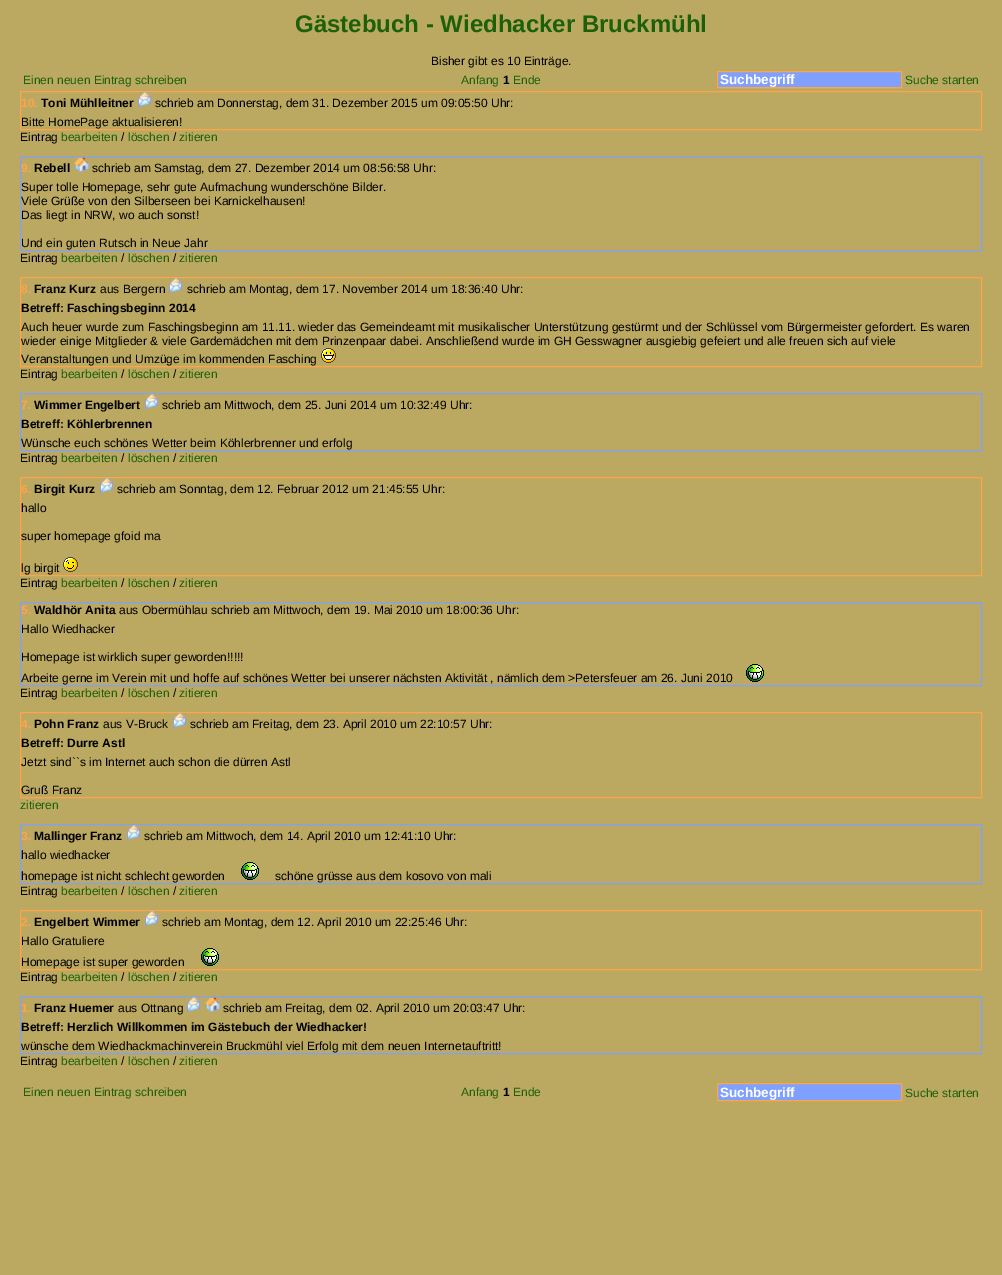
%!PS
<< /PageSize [1002 1275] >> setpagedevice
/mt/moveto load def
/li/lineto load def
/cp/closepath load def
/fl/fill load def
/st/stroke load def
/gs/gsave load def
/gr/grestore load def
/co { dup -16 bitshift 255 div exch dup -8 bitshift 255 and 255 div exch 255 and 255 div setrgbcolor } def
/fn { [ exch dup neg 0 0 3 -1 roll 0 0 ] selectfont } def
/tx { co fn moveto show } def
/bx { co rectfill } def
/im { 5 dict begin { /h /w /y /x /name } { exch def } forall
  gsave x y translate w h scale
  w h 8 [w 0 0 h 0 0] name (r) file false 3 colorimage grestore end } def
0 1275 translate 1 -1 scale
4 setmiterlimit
0 0 1002 1275 16#BBA961 bx
16#80A0FF co
717.5 71.5 mt 901.5 71.5 li 901.5 87.5 li 717.5 87.5 li cp gs fl gr
16#FFA449 co
st
20.5 91.5 961 38 rectstroke
(media/1.raw) 138 92 14 15 im
16#80A0FF co
20.5 156.5 961 94 rectstroke
(media/2.raw) 74 157 15 15 im
16#FFA449 co
20.5 277.5 961 89 rectstroke
(media/1.raw) 169 278 14 15 im
(media/3.raw) 321 348 15 15 im
16#80A0FF co
20.5 393.5 961 57 rectstroke
(media/4.raw) 145 394 14 15 im
16#FFA449 co
20.5 477.5 961 98 rectstroke
(media/1.raw) 100 478 14 15 im
(media/5.raw) 63 557 15 15 im
16#80A0FF co
20.5 602.5 961 83 rectstroke
(media/6.raw) 746 664 18 18 im
16#FFA449 co
20.5 712.5 961 85 rectstroke
(media/4.raw) 173 713 14 15 im
16#80A0FF co
20.5 824.5 961 59 rectstroke
(media/1.raw) 127 825 14 15 im
(media/6.raw) 241 862 18 18 im
16#FFA449 co
20.5 910.5 961 59 rectstroke
(media/4.raw) 145 911 14 15 im
(media/6.raw) 201 948 18 18 im
16#80A0FF co
20.5 996.5 961 57 rectstroke
(media/4.raw) 187 997 14 15 im
(media/7.raw) 205 997 15 15 im
717.5 1083.5 mt 901.5 1083.5 li 901.5 1100.5 li 717.5 1100.5 li cp gs fl gr
16#FFA449 co
st
(Gästebuch - Wiedhacker Bruckmühl) 295 32 /LiberationSans-Bold 24 16#1C610A tx
(Bisher gibt es 10 Einträge.) 431 65 /LiberationSans-Regular 12 16#000000 tx
(Einen neuen Eintrag schreiben) 23 84 /LiberationSans-Regular 12 16#1C610A tx
(Anfang) 461 84 /LiberationSans-Regular 12 16#1C610A tx
(1) 503 84 /LiberationSans-Bold 12 16#000000 tx
(Ende) 513 84 /LiberationSans-Regular 12 16#1C610A tx
(Suchbegriff) 720 84 /LiberationSans-Bold 13.5 16#FFFFFF tx
(Suche starten) 905 84 /LiberationSans-Regular 12 16#1C610A tx
(10.) 21 107 /LiberationSans-Bold 12 16#FFA449 tx
(Toni Mühlleitner) 41 107 /LiberationSans-Bold 12 16#000000 tx
(schrieb am Donnerstag, dem 31. Dezember 2015 um 09:05:50 Uhr:) 155 107 /LiberationSans-Regular 12 16#000000 tx
(Bitte HomePage aktualisieren!) 21 126 /LiberationSans-Regular 12 16#000000 tx
(Eintrag) 20 141 /LiberationSans-Regular 12 16#000000 tx
(bearbeiten) 61 141 /LiberationSans-Regular 12 16#1C610A tx
(/) 121 141 /LiberationSans-Regular 12 16#000000 tx
(löschen) 128 141 /LiberationSans-Regular 12 16#1C610A tx
(/) 173 141 /LiberationSans-Regular 12 16#000000 tx
(zitieren) 179 141 /LiberationSans-Regular 12 16#1C610A tx
(9.) 21 172 /LiberationSans-Bold 12 16#FFA449 tx
(Rebell) 34 172 /LiberationSans-Bold 12 16#000000 tx
(schrieb am Samstag, dem 27. Dezember 2014 um 08:56:58 Uhr:) 92 172 /LiberationSans-Regular 12 16#000000 tx
(Super tolle Homepage, sehr gute Aufmachung wunderschöne Bilder.) 21 191 /LiberationSans-Regular 12 16#000000 tx
(Viele Grüße von den Silberseen bei Karnickelhausen!) 21 205 /LiberationSans-Regular 12 16#000000 tx
(Das liegt in NRW, wo auch sonst!) 21 219 /LiberationSans-Regular 12 16#000000 tx
(Und ein guten Rutsch in Neue Jahr) 21 247 /LiberationSans-Regular 12 16#000000 tx
(Eintrag) 20 262 /LiberationSans-Regular 12 16#000000 tx
(bearbeiten) 61 262 /LiberationSans-Regular 12 16#1C610A tx
(/) 121 262 /LiberationSans-Regular 12 16#000000 tx
(löschen) 128 262 /LiberationSans-Regular 12 16#1C610A tx
(/) 173 262 /LiberationSans-Regular 12 16#000000 tx
(zitieren) 179 262 /LiberationSans-Regular 12 16#1C610A tx
(8.) 21 293 /LiberationSans-Bold 12 16#FFA449 tx
(Franz Kurz) 34 293 /LiberationSans-Bold 12 16#000000 tx
(aus Bergern) 100 293 /LiberationSans-Regular 12 16#000000 tx
(schrieb am Montag, dem 17. November 2014 um 18:36:40 Uhr:) 187 293 /LiberationSans-Regular 12 16#000000 tx
(Betreff: Faschingsbeginn 2014) 21 312 /LiberationSans-Bold 12 16#000000 tx
(Auch heuer wurde zum Faschingsbeginn am 11.11. wieder das Gemeindeamt mit musikalischer Unterstützung gestürmt und der Schlüssel vom Bürgermeister gefordert. Es waren) 21 331 /LiberationSans-Regular 12 16#000000 tx
(wieder einige Mitglieder & viele Gardemädchen mit dem Prinzenpaar dabei. Anschließend wurde im GH Gesswagner ausgiebig gefeiert und alle freuen sich auf viele) 21 345 /LiberationSans-Regular 12 16#000000 tx
(Veranstaltungen und Umzüge im kommenden Fasching) 21 363 /LiberationSans-Regular 12 16#000000 tx
(Eintrag) 20 378 /LiberationSans-Regular 12 16#000000 tx
(bearbeiten) 61 378 /LiberationSans-Regular 12 16#1C610A tx
(/) 121 378 /LiberationSans-Regular 12 16#000000 tx
(löschen) 128 378 /LiberationSans-Regular 12 16#1C610A tx
(/) 173 378 /LiberationSans-Regular 12 16#000000 tx
(zitieren) 179 378 /LiberationSans-Regular 12 16#1C610A tx
(7.) 21 409 /LiberationSans-Bold 12 16#FFA449 tx
(Wimmer Engelbert) 34 409 /LiberationSans-Bold 12 16#000000 tx
(schrieb am Mittwoch, dem 25. Juni 2014 um 10:32:49 Uhr:) 162 409 /LiberationSans-Regular 12 16#000000 tx
(Betreff: Köhlerbrennen) 21 428 /LiberationSans-Bold 12 16#000000 tx
(Wünsche euch schönes Wetter beim Köhlerbrenner und erfolg) 21 447 /LiberationSans-Regular 12 16#000000 tx
(Eintrag) 20 462 /LiberationSans-Regular 12 16#000000 tx
(bearbeiten) 61 462 /LiberationSans-Regular 12 16#1C610A tx
(/) 121 462 /LiberationSans-Regular 12 16#000000 tx
(löschen) 128 462 /LiberationSans-Regular 12 16#1C610A tx
(/) 173 462 /LiberationSans-Regular 12 16#000000 tx
(zitieren) 179 462 /LiberationSans-Regular 12 16#1C610A tx
(6.) 21 493 /LiberationSans-Bold 12 16#FFA449 tx
(Birgit Kurz) 34 493 /LiberationSans-Bold 12 16#000000 tx
(schrieb am Sonntag, dem 12. Februar 2012 um 21:45:55 Uhr:) 117 493 /LiberationSans-Regular 12 16#000000 tx
(hallo) 21 512 /LiberationSans-Regular 12 16#000000 tx
(super homepage gfoid ma) 21 540 /LiberationSans-Regular 12 16#000000 tx
(lg birgit) 21 572 /LiberationSans-Regular 12 16#000000 tx
(Eintrag) 20 587 /LiberationSans-Regular 12 16#000000 tx
(bearbeiten) 61 587 /LiberationSans-Regular 12 16#1C610A tx
(/) 121 587 /LiberationSans-Regular 12 16#000000 tx
(löschen) 128 587 /LiberationSans-Regular 12 16#1C610A tx
(/) 173 587 /LiberationSans-Regular 12 16#000000 tx
(zitieren) 179 587 /LiberationSans-Regular 12 16#1C610A tx
(5.) 21 614 /LiberationSans-Bold 12 16#FFA449 tx
(Waldhör Anita) 34 614 /LiberationSans-Bold 12 16#000000 tx
(aus Obermühlau schrieb am Mittwoch, dem 19. Mai 2010 um 18:00:36 Uhr:) 119 614 /LiberationSans-Regular 12 16#000000 tx
(Hallo Wiedhacker) 21 633 /LiberationSans-Regular 12 16#000000 tx
(Homepage ist wirklich super geworden!!!!!) 21 661 /LiberationSans-Regular 12 16#000000 tx
(Arbeite gerne im Verein mit und hoffe auf schönes Wetter bei unserer nächsten Aktivität , nämlich dem >Petersfeuer am 26. Juni 2010) 21 682 /LiberationSans-Regular 12 16#000000 tx
(Eintrag) 20 697 /LiberationSans-Regular 12 16#000000 tx
(bearbeiten) 61 697 /LiberationSans-Regular 12 16#1C610A tx
(/) 121 697 /LiberationSans-Regular 12 16#000000 tx
(löschen) 128 697 /LiberationSans-Regular 12 16#1C610A tx
(/) 173 697 /LiberationSans-Regular 12 16#000000 tx
(zitieren) 179 697 /LiberationSans-Regular 12 16#1C610A tx
(4.) 21 728 /LiberationSans-Bold 12 16#FFA449 tx
(Pohn Franz) 34 728 /LiberationSans-Bold 12 16#000000 tx
(aus V-Bruck) 103 728 /LiberationSans-Regular 12 16#000000 tx
(schrieb am Freitag, dem 23. April 2010 um 22:10:57 Uhr:) 190 728 /LiberationSans-Regular 12 16#000000 tx
(Betreff: Durre Astl) 21 747 /LiberationSans-Bold 12 16#000000 tx
(Jetzt sind``s im Internet auch schon die dürren Astl) 21 766 /LiberationSans-Regular 12 16#000000 tx
(Gruß Franz) 21 794 /LiberationSans-Regular 12 16#000000 tx
(zitieren) 20 809 /LiberationSans-Regular 12 16#1C610A tx
(3.) 21 840 /LiberationSans-Bold 12 16#FFA449 tx
(Mallinger Franz) 34 840 /LiberationSans-Bold 12 16#000000 tx
(schrieb am Mittwoch, dem 14. April 2010 um 12:41:10 Uhr:) 144 840 /LiberationSans-Regular 12 16#000000 tx
(hallo wiedhacker) 21 859 /LiberationSans-Regular 12 16#000000 tx
(homepage ist nicht schlecht geworden) 21 880 /LiberationSans-Regular 12 16#000000 tx
(schöne grüsse aus dem kosovo von mali) 275 880 /LiberationSans-Regular 12 16#000000 tx
(Eintrag) 20 895 /LiberationSans-Regular 12 16#000000 tx
(bearbeiten) 61 895 /LiberationSans-Regular 12 16#1C610A tx
(/) 121 895 /LiberationSans-Regular 12 16#000000 tx
(löschen) 128 895 /LiberationSans-Regular 12 16#1C610A tx
(/) 173 895 /LiberationSans-Regular 12 16#000000 tx
(zitieren) 179 895 /LiberationSans-Regular 12 16#1C610A tx
(2.) 21 926 /LiberationSans-Bold 12 16#FFA449 tx
(Engelbert Wimmer) 34 926 /LiberationSans-Bold 12 16#000000 tx
(schrieb am Montag, dem 12. April 2010 um 22:25:46 Uhr:) 162 926 /LiberationSans-Regular 12 16#000000 tx
(Hallo Gratuliere) 21 945 /LiberationSans-Regular 12 16#000000 tx
(Homepage ist super geworden) 21 966 /LiberationSans-Regular 12 16#000000 tx
(Eintrag) 20 981 /LiberationSans-Regular 12 16#000000 tx
(bearbeiten) 61 981 /LiberationSans-Regular 12 16#1C610A tx
(/) 121 981 /LiberationSans-Regular 12 16#000000 tx
(löschen) 128 981 /LiberationSans-Regular 12 16#1C610A tx
(/) 173 981 /LiberationSans-Regular 12 16#000000 tx
(zitieren) 179 981 /LiberationSans-Regular 12 16#1C610A tx
(1.) 21 1012 /LiberationSans-Bold 12 16#FFA449 tx
(Franz Huemer) 34 1012 /LiberationSans-Bold 12 16#000000 tx
(aus Ottnang) 118 1012 /LiberationSans-Regular 12 16#000000 tx
(schrieb am Freitag, dem 02. April 2010 um 20:03:47 Uhr:) 223 1012 /LiberationSans-Regular 12 16#000000 tx
(Betreff: Herzlich Willkommen im Gästebuch der Wiedhacker!) 21 1031 /LiberationSans-Bold 12 16#000000 tx
(wünsche dem Wiedhackmachinverein Bruckmühl viel Erfolg mit dem neuen Internetauftritt!) 21 1050 /LiberationSans-Regular 12 16#000000 tx
(Eintrag) 20 1065 /LiberationSans-Regular 12 16#000000 tx
(bearbeiten) 61 1065 /LiberationSans-Regular 12 16#1C610A tx
(/) 121 1065 /LiberationSans-Regular 12 16#000000 tx
(löschen) 128 1065 /LiberationSans-Regular 12 16#1C610A tx
(/) 173 1065 /LiberationSans-Regular 12 16#000000 tx
(zitieren) 179 1065 /LiberationSans-Regular 12 16#1C610A tx
(Einen neuen Eintrag schreiben) 23 1096 /LiberationSans-Regular 12 16#1C610A tx
(Anfang) 461 1096 /LiberationSans-Regular 12 16#1C610A tx
(1) 503 1096 /LiberationSans-Bold 12 16#000000 tx
(Ende) 513 1096 /LiberationSans-Regular 12 16#1C610A tx
(Suchbegriff) 720 1097 /LiberationSans-Bold 13.5 16#FFFFFF tx
(Suche starten) 905 1097 /LiberationSans-Regular 12 16#1C610A tx
showpage
